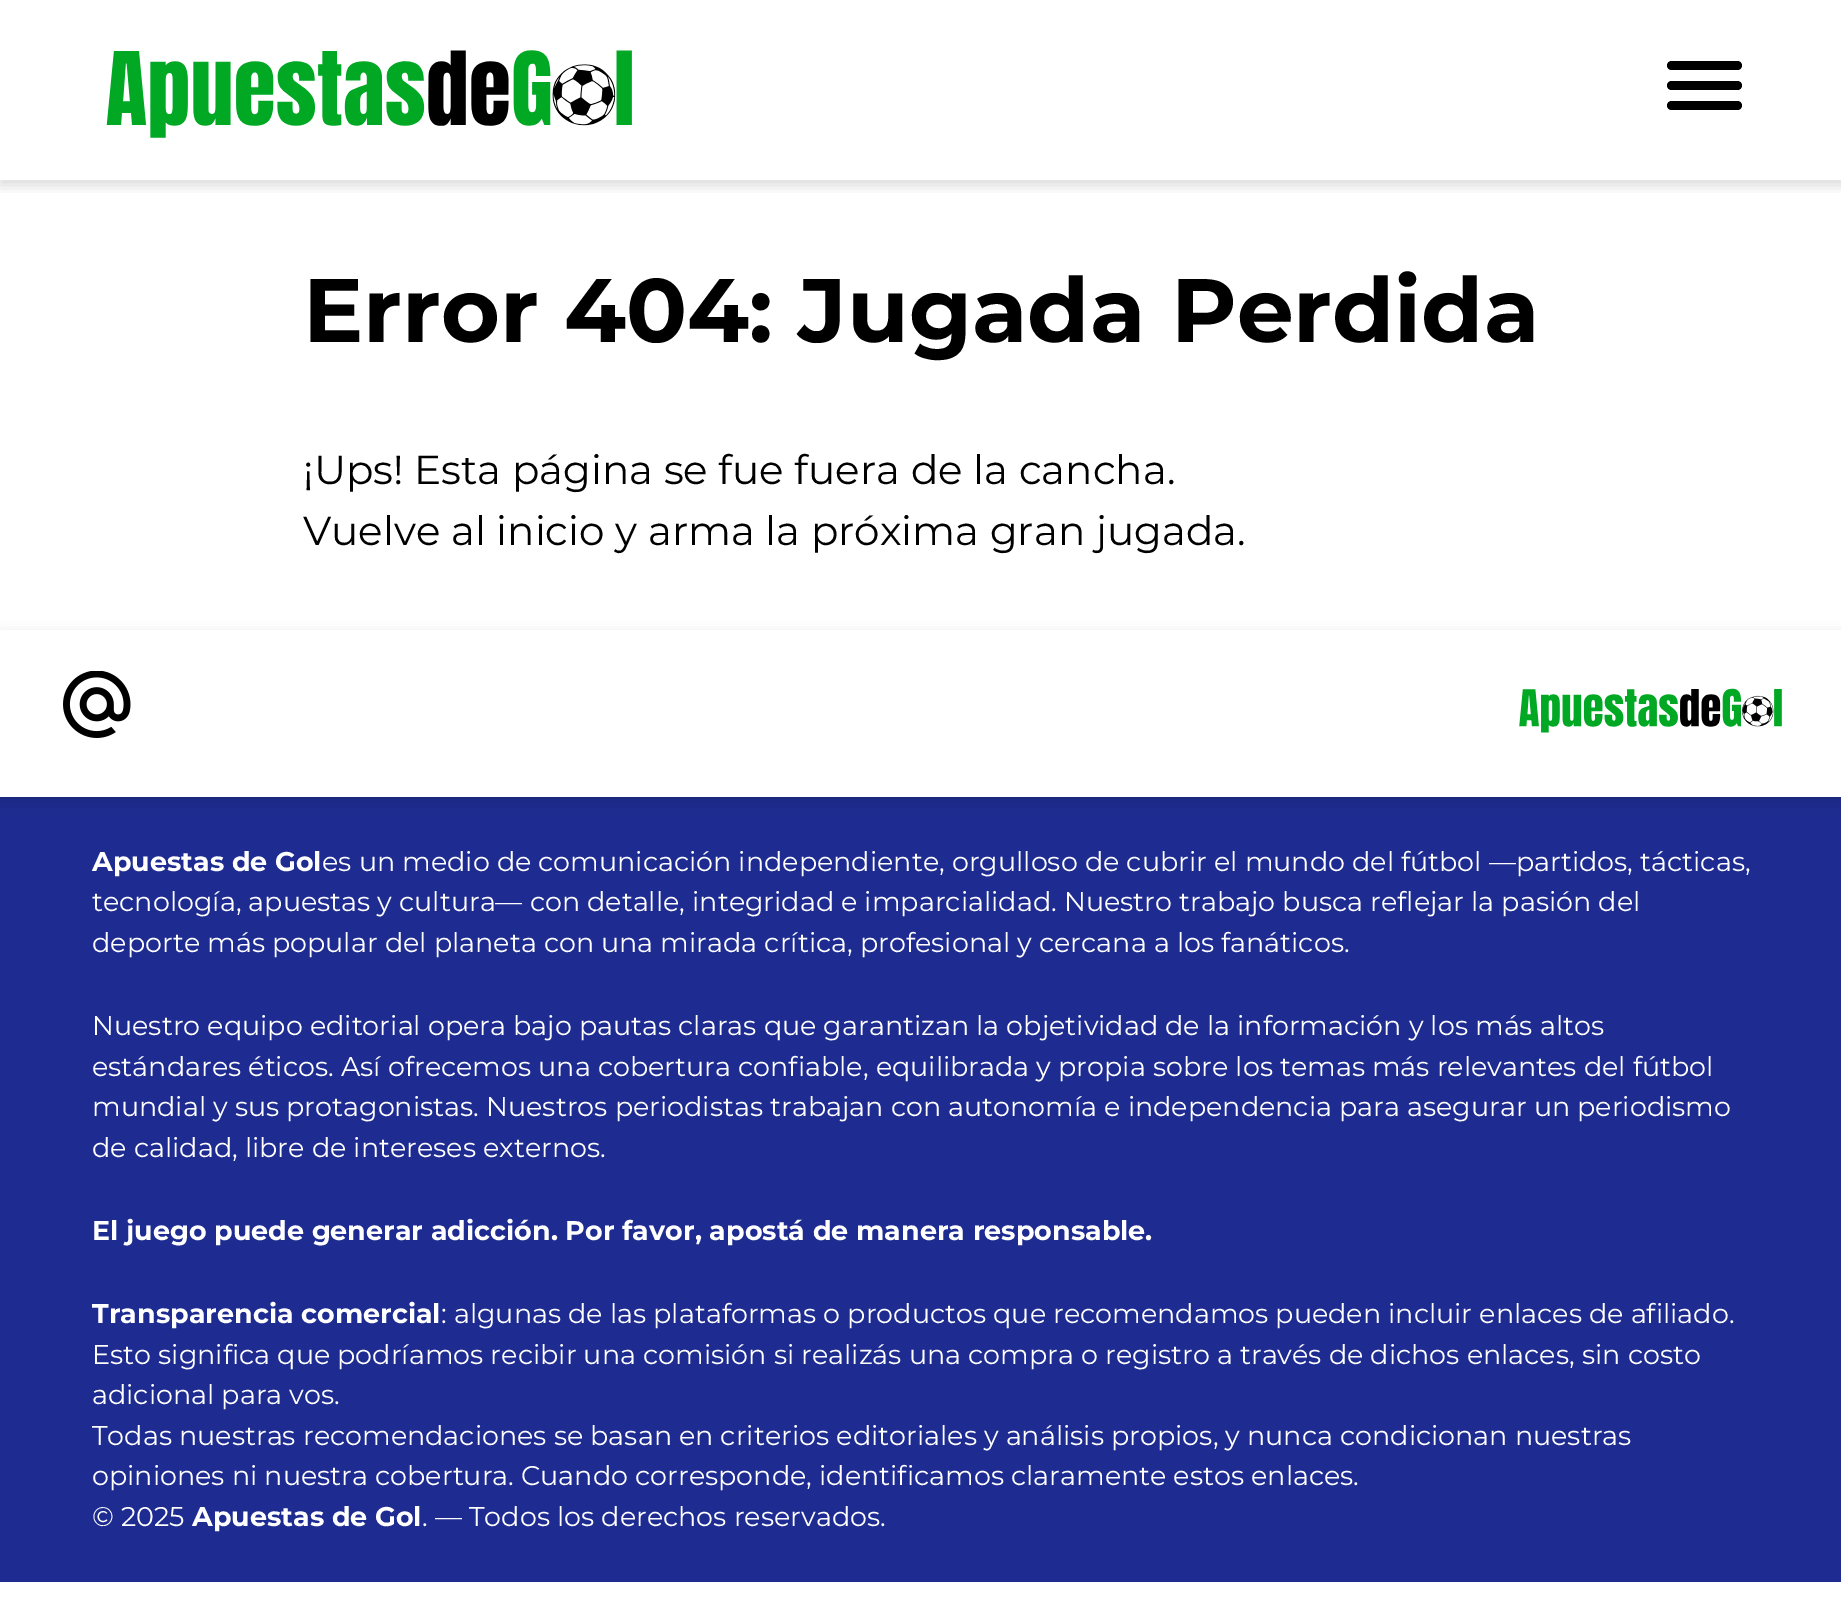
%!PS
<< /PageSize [1841 1610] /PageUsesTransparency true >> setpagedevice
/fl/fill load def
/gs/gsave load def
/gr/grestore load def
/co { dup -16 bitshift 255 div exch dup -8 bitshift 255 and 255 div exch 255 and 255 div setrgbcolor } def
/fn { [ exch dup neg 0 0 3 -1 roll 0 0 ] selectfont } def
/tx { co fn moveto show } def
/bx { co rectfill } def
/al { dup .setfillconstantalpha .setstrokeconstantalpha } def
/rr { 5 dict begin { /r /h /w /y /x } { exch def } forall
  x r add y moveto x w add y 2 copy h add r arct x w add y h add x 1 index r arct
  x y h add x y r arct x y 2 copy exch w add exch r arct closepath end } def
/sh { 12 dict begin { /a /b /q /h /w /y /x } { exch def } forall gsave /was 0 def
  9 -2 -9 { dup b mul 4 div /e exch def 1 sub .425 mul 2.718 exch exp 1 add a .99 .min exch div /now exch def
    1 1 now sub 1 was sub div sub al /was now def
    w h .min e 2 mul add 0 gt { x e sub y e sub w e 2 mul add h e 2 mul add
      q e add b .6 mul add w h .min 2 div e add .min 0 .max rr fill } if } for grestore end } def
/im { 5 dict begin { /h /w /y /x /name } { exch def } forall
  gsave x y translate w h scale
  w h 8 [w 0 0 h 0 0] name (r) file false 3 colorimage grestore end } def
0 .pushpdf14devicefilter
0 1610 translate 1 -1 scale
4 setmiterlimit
0 0 1841 1610 16#FFFFFF bx
gs
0 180 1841 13 rectclip
16#000000 co
0 5 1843 180 0 7 .15 sh
gr
(media/1.raw) 106 50 526 88 im
16#000000 co
1667 61 75 9 4.5 rr fl
1667 81 75 9 4.5 rr fl
1667 101 75 9 4.5 rr fl
0 797 1841 785 16#1E2C91 bx
16#000000 co
0 635 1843 166 0 7 .15 sh
0 630 1841 167 16#FFFFFF bx
(media/2.raw) 63 671 68 67 im
(media/3.raw) 1519 688 263 45 im
(Error 404: Jugada Perdida) 303 342 /Montserrat-Bold 90 16#000000 tx
(¡Ups! Esta página se fue fuera de la cancha.) 303 484 /Montserrat-Regular 40.5 16#000000 tx
(Vuelve al inicio y arma la próxima gran jugada.) 303 545 /Montserrat-Regular 40.5 16#000000 tx
(Apuestas de Gol) 92 871 /Montserrat-Bold 27 16#FFFFFF tx
(es un medio de comunicación independiente, orgulloso de cubrir el mundo del fútbol —partidos, tácticas,) 322 871 /Montserrat-Regular 27 16#FFFFFF tx
(tecnología, apuestas y cultura— con detalle, integridad e imparcialidad. Nuestro trabajo busca reflejar la pasión del) 92 911 /Montserrat-Regular 27 16#FFFFFF tx
(deporte más popular del planeta con una mirada crítica, profesional y cercana a los fanáticos.) 92 952 /Montserrat-Regular 27 16#FFFFFF tx
(Nuestro equipo editorial opera bajo pautas claras que garantizan la objetividad de la información y los más altos) 92 1035 /Montserrat-Regular 27 16#FFFFFF tx
(estándares éticos. Así ofrecemos una cobertura confiable, equilibrada y propia sobre los temas más relevantes del fútbol) 92 1076 /Montserrat-Regular 27 16#FFFFFF tx
(mundial y sus protagonistas. Nuestros periodistas trabajan con autonomía e independencia para asegurar un periodismo) 92 1116 /Montserrat-Regular 27 16#FFFFFF tx
(de calidad, libre de intereses externos.) 92 1157 /Montserrat-Regular 27 16#FFFFFF tx
(El juego puede generar adicción. Por favor, apostá de manera responsable.) 92 1240 /Montserrat-Bold 27 16#FFFFFF tx
(Transparencia comercial) 92 1323 /Montserrat-Bold 27 16#FFFFFF tx
(: algunas de las plataformas o productos que recomendamos pueden incluir enlaces de afiliado.) 441 1323 /Montserrat-Regular 27 16#FFFFFF tx
(Esto significa que podríamos recibir una comisión si realizás una compra o registro a través de dichos enlaces, sin costo) 92 1364 /Montserrat-Regular 27 16#FFFFFF tx
(adicional para vos.) 92 1404 /Montserrat-Regular 27 16#FFFFFF tx
(Todas nuestras recomendaciones se basan en criterios editoriales y análisis propios, y nunca condicionan nuestras) 92 1445 /Montserrat-Regular 27 16#FFFFFF tx
(opiniones ni nuestra cobertura. Cuando corresponde, identificamos claramente estos enlaces.) 92 1485 /Montserrat-Regular 27 16#FFFFFF tx
(© 2025) 92 1526 /Montserrat-Regular 27 16#FFFFFF tx
(Apuestas de Gol) 192 1526 /Montserrat-Bold 27 16#FFFFFF tx
(. — Todos los derechos reservados.) 422 1526 /Montserrat-Regular 27 16#FFFFFF tx
.poppdf14devicefilter showpage
